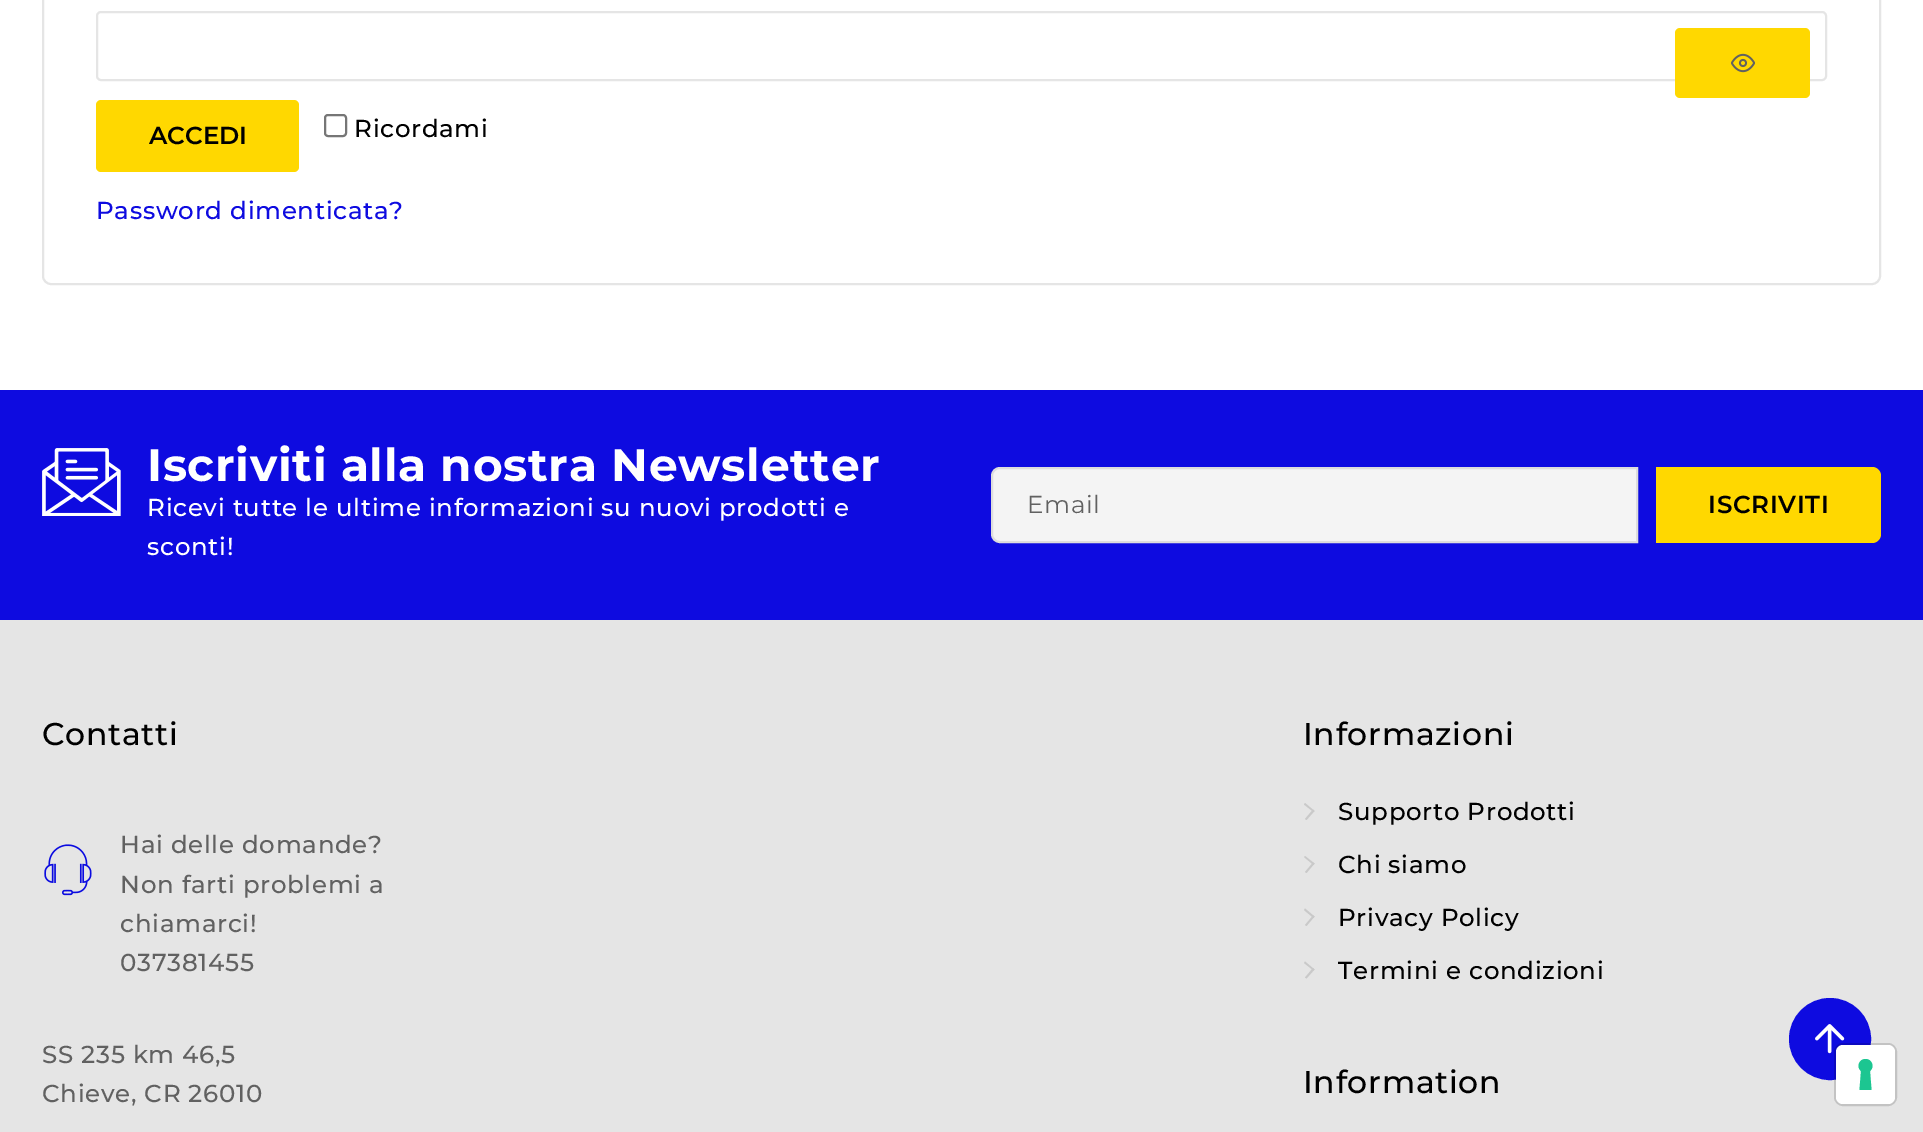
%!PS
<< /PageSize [1923 1132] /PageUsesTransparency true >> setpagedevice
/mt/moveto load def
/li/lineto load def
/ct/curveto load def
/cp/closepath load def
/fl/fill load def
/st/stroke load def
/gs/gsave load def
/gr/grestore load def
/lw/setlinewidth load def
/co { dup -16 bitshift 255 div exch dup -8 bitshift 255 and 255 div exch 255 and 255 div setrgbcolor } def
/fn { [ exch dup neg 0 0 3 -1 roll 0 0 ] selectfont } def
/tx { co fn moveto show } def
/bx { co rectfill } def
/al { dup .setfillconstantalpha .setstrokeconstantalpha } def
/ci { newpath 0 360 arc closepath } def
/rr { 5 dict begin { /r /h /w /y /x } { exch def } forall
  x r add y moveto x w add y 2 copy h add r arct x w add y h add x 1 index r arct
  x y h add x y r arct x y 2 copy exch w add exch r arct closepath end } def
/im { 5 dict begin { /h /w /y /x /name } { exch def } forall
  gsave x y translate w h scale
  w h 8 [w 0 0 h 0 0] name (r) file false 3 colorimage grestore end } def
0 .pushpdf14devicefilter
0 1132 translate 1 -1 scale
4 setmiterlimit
0 0 1923 1132 16#FFFFFF bx
16#E5E5E5 co
2 lw
43 -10 1837 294 8 rr st
97 12 1729 68 4 rr st
16#FFD800 co
1675 28 135 70 5 rr fl
(media/1.raw) 1731 53 24 20 im
96 100 203 72 5 rr fl
16#767676 co
325 115 21 21 3 rr st
0 620 1923 512 16#E5E5E5 bx
0 390 1923 230 16#0E0BE0 bx
(media/2.raw) 42 448 79 68 im
16#F4F4F4 co
1000 468 mt 1637 468 li 1637 542 li 1000 542 li 995.5 542 992 538.5 992 534 ct 992 476 li 992 471.5 995.5 468 1000 468 ct cp gs fl gr
16#DDDDDD co
st
16#FFD800 co
1656 467 mt 1872 467 li 1877 467 1881 471 1881 476 ct 1881 534 li 1881 539 1877 543 1872 543 ct 1656 543 li cp fl
(media/3.raw) 44 844 48 52 im
16#C9C9C9 co
1305 803 mt 1314.5 811 li 1313.5 812 li 1304 804.5 li cp fl
1313 809.5 mt 1314.5 811 li 1306.5 820 li 1305 819 li cp fl
1305 856 mt 1314.5 863.5 li 1313.5 865 li 1304 857 li cp fl
1313 862.5 mt 1314.5 863.5 li 1306.5 873 li 1305 872 li cp fl
1305 908.5 mt 1314.5 916.5 li 1313.5 918 li 1304 910 li cp fl
1313 915.5 mt 1314.5 916.5 li 1306.5 926 li 1305 925 li cp fl
1305 961.5 mt 1314.5 969.5 li 1313.5 970.5 li 1304 963 li cp fl
1313 968 mt 1314.5 969.5 li 1306.5 978.5 li 1305 977.5 li cp fl
16#0E0BE0 co
1830 1039 40 ci gs fl gr
st
(media/4.raw) 1815 1024 30 30 im
0.15 al
16#000000 co
1835 1044 61 61 8 rr st
1 al
16#FFFFFF co
1836 1045 59 59 7 rr fl
16#1CC691 co
1865.5 1059 mt 1872 1059 1875 1067 1870 1071 ct 1871.5 1090 li 1859.5 1090 li 1861 1071 li 1856 1067 1859 1059 1865.5 1059 ct cp eofill
(ACCEDI) 149 144 /Montserrat-SemiBold 24.5 16#000000 tx
/Montserrat-Medium 24.5 fn
354 137 mt .7 0 (Ricordami) ashow
16#0E0BE0 co
96 219 mt .7 0 (Password dimenticata?) ashow
/Montserrat-Bold 45.5 fn
16#FFFFFF co
147 481 mt .7 0 (Iscriviti alla nostra Newsletter) ashow
/Montserrat-Medium 24.5 fn
147 516 mt .7 0 (Ricevi tutte le ultime informazioni su nuovi prodotti e) ashow
147 555 mt .7 0 (sconti!) ashow
/Montserrat-Regular 24.5 fn
16#616161 co
1027 513 mt .7 0 (Email) ashow
/Montserrat-SemiBold 24.5 fn
16#000000 co
1708 513 mt .7 0 (ISCRIVITI) ashow
/Montserrat-Medium 31.5 fn
42 745 mt .7 0 (Contatti) ashow
/Montserrat-Medium 24.5 fn
16#616161 co
120 853 mt .7 0 (Hai delle domande?) ashow
120 893 mt .7 0 (Non farti problemi a) ashow
120 932 mt .7 0 (chiamarci!) ashow
120 971 mt .7 0 (037381455) ashow
42 1063 mt .7 0 (SS 235 km 46,5) ashow
42 1102 mt .7 0 (Chieve, CR 26010) ashow
/Montserrat-Medium 31.5 fn
16#000000 co
1303 745 mt .7 0 (Informazioni) ashow
/Montserrat-Medium 24.5 fn
1338 820 mt .7 0 (Supporto Prodotti) ashow
1338 873 mt .7 0 (Chi siamo) ashow
1338 926 mt .7 0 (Privacy Policy) ashow
1338 979 mt .7 0 (Termini e condizioni) ashow
/Montserrat-Medium 31.5 fn
1303 1093 mt .7 0 (Information) ashow
.poppdf14devicefilter showpage
